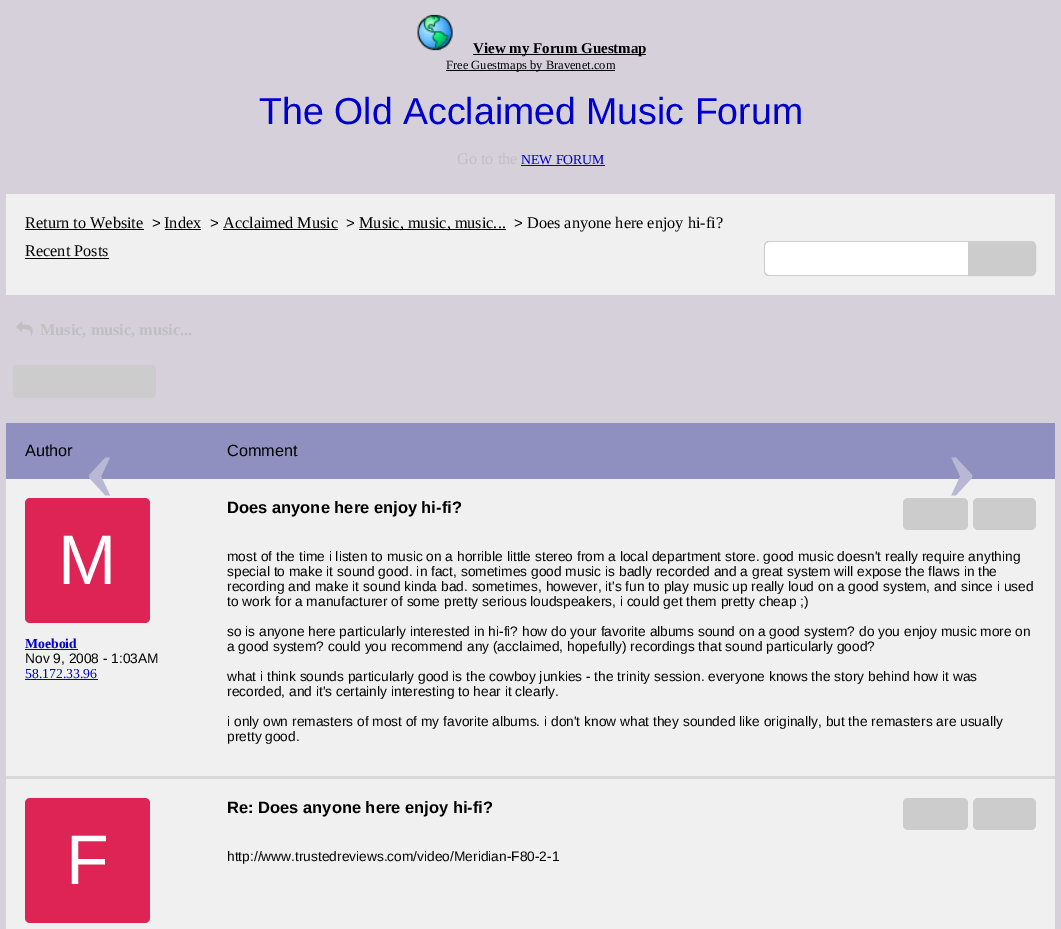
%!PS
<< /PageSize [1061 929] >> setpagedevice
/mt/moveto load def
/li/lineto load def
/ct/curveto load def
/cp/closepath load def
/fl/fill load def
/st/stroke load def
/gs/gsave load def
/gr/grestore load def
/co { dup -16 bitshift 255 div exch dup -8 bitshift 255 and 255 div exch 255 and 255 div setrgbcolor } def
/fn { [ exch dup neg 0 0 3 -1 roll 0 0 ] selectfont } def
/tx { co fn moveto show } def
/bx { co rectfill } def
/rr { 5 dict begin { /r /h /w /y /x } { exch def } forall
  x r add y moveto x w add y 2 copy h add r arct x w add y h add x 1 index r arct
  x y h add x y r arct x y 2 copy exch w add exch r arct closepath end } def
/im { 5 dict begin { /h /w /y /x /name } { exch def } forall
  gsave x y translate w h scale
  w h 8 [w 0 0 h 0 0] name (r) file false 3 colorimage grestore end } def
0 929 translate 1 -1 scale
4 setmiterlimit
0 0 1061 929 16#D5D0DA bx
(media/1.raw) 417 14 36 37 im
473 54 173 1 16#000000 bx
446 70 169 1 16#000000 bx
521 165 84 1 16#0000CC bx
6 194 1049 101 16#F0F0F0 bx
25 229 119 1 16#000000 bx
165 229 36 1 16#000000 bx
223 229 115 1 16#000000 bx
359 229 147 1 16#000000 bx
25 258 84 1 16#000000 bx
16#FFFFFF co
764 241 260 35 5 rr fl
16#CCCCCC co
769 241 mt 1019 241 li 1022 241 1024 243 1024 246 ct 1024 271 li 1024 274 1022 276 1019 276 ct 769 276 li 766 276 764 274 764 271 ct 764 246 li 764 243 766 241 769 241 ct cp 769 242 mt 1019 242 li 1022 242 1024 244 1024 246 ct 1024 271 li 1024 273 1022 275 1019 275 ct 769 275 li 767 275 765 273 765 271 ct 765 246 li 765 244 767 242 769 242 ct cp eofill
968.5 241.5 mt 1031 241.5 li 1033.5 241.5 1035.5 243.5 1035.5 246 ct 1035.5 271 li 1035.5 273.5 1033.5 275.5 1031 275.5 ct 968.5 275.5 li cp gs fl gr
st
(media/2.raw) 16 321 17 15 im
13 365 143 33 5 rr fl
6 423 1049 56 16#9090C0 bx
6 479 1049 297 16#F0F0F0 bx
6 776 1049 3 16#D8D8D8 bx
16#DE2455 co
25 498 125 125 5 rr fl
25 649 53 1 16#0000CC bx
25 679 73 1 16#0000CC bx
16#CCCCCC co
903 498 65 32 5 rr fl
973 498 63 32 5 rr fl
6 779 1049 150 16#F0F0F0 bx
16#DE2455 co
25 798 125 125 5 rr fl
16#CCCCCC co
903 798 65 32 5 rr fl
973 798 63 32 5 rr fl
(View my Forum Guestmap) 473 53 /LiberationSerif-Bold 15 16#000000 tx
(Free Guestmaps by Bravenet.com) 446 69 /LiberationSerif-Regular 12.5 16#000000 tx
(The Old Acclaimed Music Forum) 259 124 /LiberationSans-Regular 37.5 16#0000CC tx
(Go to the) 457 164 /LiberationSerif-Regular 16.25 16#C0C0C0 tx
(NEW FORUM) 521 164 /LiberationSerif-Regular 13.75 16#0000CC tx
(Return to Website) 25 228 /LiberationSerif-Regular 16.25 16#000000 tx
(>) 152 228 /LiberationSans-Regular 15 16#000000 tx
(Index) 164 228 /LiberationSerif-Regular 16.25 16#000000 tx
(>) 210 228 /LiberationSans-Regular 15 16#000000 tx
(Acclaimed Music) 223 228 /LiberationSerif-Regular 16.25 16#000000 tx
(>) 346 228 /LiberationSans-Regular 15 16#000000 tx
(Music, music, music...) 359 228 /LiberationSerif-Regular 16.25 16#000000 tx
(>) 514 228 /LiberationSans-Regular 15 16#000000 tx
(Does anyone here enjoy hi-fi?) 527 228 /LiberationSerif-Regular 16.25 16#000000 tx
(Recent Posts) 25 256 /LiberationSerif-Regular 16.25 16#000000 tx
(Music, music, music...) 40 335 /LiberationSerif-Bold 16.25 16#C0C0C0 tx
(Author) 25 456 /LiberationSans-Regular 16.25 16#000000 tx
(Comment) 227 456 /LiberationSans-Regular 16.25 16#000000 tx
(‹) 83 499 /LiberationSerif-Bold 100 16#B8B8D4 tx
(›) 945 499 /LiberationSerif-Bold 100 16#B8B8D4 tx
(M) 58 584 /LiberationSans-Regular 70 16#FFFFFF tx
(Moeboid) 25 648 /LiberationSerif-Bold 13.75 16#0000CC tx
(Nov 9, 2008 - 1:03AM) 25 663 /LiberationSans-Regular 13.75 16#000000 tx
(58.172.33.96) 25 678 /LiberationSerif-Regular 13.75 16#0000CC tx
(Does anyone here enjoy hi-fi?) 227 513 /LiberationSans-Bold 16.5 16#000000 tx
(most of the time i listen to music on a horrible little stereo from a local department store. good music doesn't really require anything) 227 561 /LiberationSans-Regular 13.75 16#000000 tx
(special to make it sound good. in fact, sometimes good music is badly recorded and a great system will expose the flaws in the) 227 576 /LiberationSans-Regular 13.75 16#000000 tx
(recording and make it sound kinda bad. sometimes, however, it's fun to play music up really loud on a good system, and since i used) 227 591 /LiberationSans-Regular 13.75 16#000000 tx
(to work for a manufacturer of some pretty serious loudspeakers, i could get them pretty cheap ;\)) 227 606 /LiberationSans-Regular 13.75 16#000000 tx
(so is anyone here particularly interested in hi-fi? how do your favorite albums sound on a good system? do you enjoy music more on) 227 636 /LiberationSans-Regular 13.75 16#000000 tx
(a good system? could you recommend any \(acclaimed, hopefully\) recordings that sound particularly good?) 227 651 /LiberationSans-Regular 13.75 16#000000 tx
(what i think sounds particularly good is the cowboy junkies - the trinity session. everyone knows the story behind how it was) 227 681 /LiberationSans-Regular 13.75 16#000000 tx
(recorded, and it's certainly interesting to hear it clearly.) 227 696 /LiberationSans-Regular 13.75 16#000000 tx
(i only own remasters of most of my favorite albums. i don't know what they sounded like originally, but the remasters are usually) 227 726 /LiberationSans-Regular 13.75 16#000000 tx
(pretty good.) 227 741 /LiberationSans-Regular 13.75 16#000000 tx
(F) 66 884 /LiberationSans-Regular 70 16#FFFFFF tx
(Re: Does anyone here enjoy hi-fi?) 227 813 /LiberationSans-Bold 16.5 16#000000 tx
(http://www.trustedreviews.com/video/Meridian-F80-2-1) 227 861 /LiberationSans-Regular 13.75 16#000000 tx
showpage
